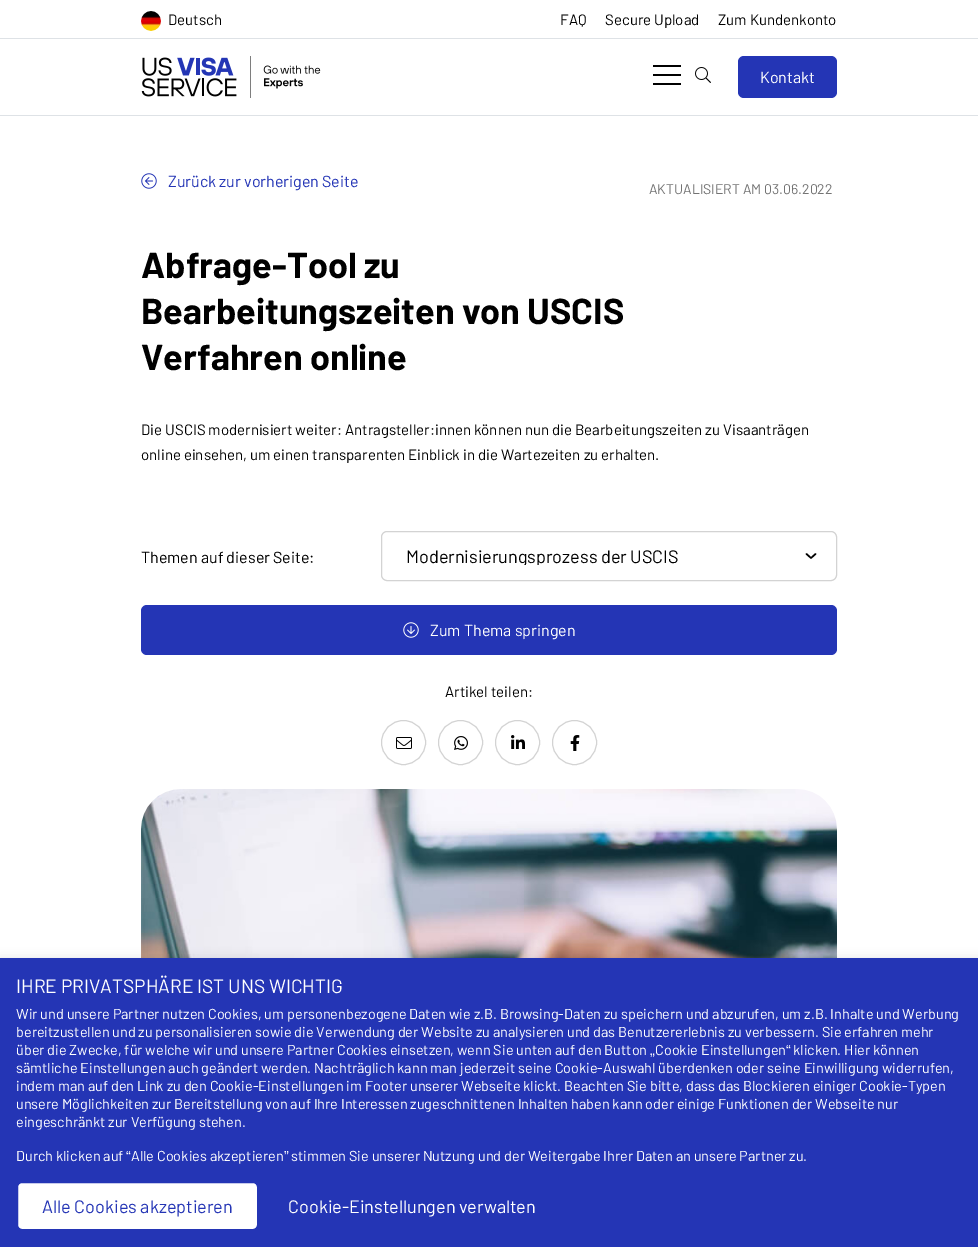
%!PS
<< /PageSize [978 1247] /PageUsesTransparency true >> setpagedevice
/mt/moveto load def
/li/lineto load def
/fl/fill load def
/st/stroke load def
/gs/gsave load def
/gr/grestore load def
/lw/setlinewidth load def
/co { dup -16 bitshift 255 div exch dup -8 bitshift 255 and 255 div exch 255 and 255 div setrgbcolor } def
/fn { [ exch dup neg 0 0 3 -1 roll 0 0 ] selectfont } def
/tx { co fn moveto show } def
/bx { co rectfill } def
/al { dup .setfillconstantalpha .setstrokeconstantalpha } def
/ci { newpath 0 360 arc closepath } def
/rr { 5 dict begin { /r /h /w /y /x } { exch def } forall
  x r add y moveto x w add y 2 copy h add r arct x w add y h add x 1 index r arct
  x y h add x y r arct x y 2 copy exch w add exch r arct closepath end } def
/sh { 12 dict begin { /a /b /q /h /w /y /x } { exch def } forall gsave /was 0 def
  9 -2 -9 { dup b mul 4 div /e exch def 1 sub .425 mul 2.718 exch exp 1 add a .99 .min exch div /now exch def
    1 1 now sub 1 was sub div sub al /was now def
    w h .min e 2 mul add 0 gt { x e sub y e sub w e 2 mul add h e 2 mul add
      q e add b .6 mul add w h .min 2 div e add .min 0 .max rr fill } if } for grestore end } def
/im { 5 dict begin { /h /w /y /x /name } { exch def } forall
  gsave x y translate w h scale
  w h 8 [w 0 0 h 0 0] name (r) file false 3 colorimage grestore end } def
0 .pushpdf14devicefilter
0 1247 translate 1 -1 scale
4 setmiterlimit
0 0 978 1247 16#FFFFFF bx
0 38 978 1 16#DEE2E6 bx
(media/1.raw) 141 11 20 20 im
0 115 978 1 16#DEE2E6 bx
(media/2.raw) 141 56 180 42 im
653 65 28 2 16#000000 bx
653 74 28 2 16#000000 bx
653 83 28 2 16#000000 bx
(media/3.raw) 695 67 16 16 im
16#2435B5 co
738 56 99 42 6 rr fl
(media/4.raw) 141 173 16 16 im
16#000000 co
1.5 lw
1 setlinecap
1 setlinejoin
806.5 554 mt 811 558 li 815.5 554 li st
16#D3D3D3 co
1 lw
0 setlinecap
0 setlinejoin
381.5 531.5 455 49 5.5 rr st
16#2435B5 co
141 605 696 50 6 rr fl
(media/5.raw) 403 622 16 16 im
16#D3D3D3 co
403.5 742.5 22 ci st
(media/6.raw) 396 737 16 12 im
460.5 742.5 22 ci st
(media/7.raw) 454 736 14 14 im
517.5 742.5 22 ci st
(media/8.raw) 511 735 14 14 im
574.5 742.5 22 ci st
(media/9.raw) 570 735 10 16 im
(media/10.raw) 141 789 696 169 im
16#000000 co
0 958 978 289 0 5 .1 sh
0 958 978 289 16#2435B5 bx
16#FFFFFF co
17 1182 241 48 5 rr gs fl gr
16#2435B5 co
2 lw
st
(Deutsch) 168 25 /Barlow-Regular 15 16#000000 tx
(FAQ) 560 25 /Barlow-Regular 15 16#000000 tx
(Secure Upload) 605 25 /Barlow-Regular 15 16#000000 tx
(Zum Kundenkonto) 718 25 /Barlow-Regular 15 16#000000 tx
(Kontakt) 760 83 /Barlow-Regular 16 16#FFFFFF tx
(Zurück zur vorherigen Seite) 168 187 /Barlow-Regular 16 16#2435B5 tx
(AKTUALISIERT AM 03.06.2022) 649 194 /Barlow-Regular 14 16#737373 tx
(Abfrage-Tool zu) 141 278 /Barlow-Bold 36 16#000000 tx
(Bearbeitungszeiten von USCIS) 141 324 /Barlow-Bold 36 16#000000 tx
(Verfahren online) 141 370 /Barlow-Bold 36 16#000000 tx
(Die USCIS modernisiert weiter: Antragsteller:innen können nun die Bearbeitungszeiten zu Visaanträgen) 141 435 /Barlow-Regular 15 16#000000 tx
(online einsehen, um einen transparenten Einblick in die Wartezeiten zu erhalten.) 141 460 /Barlow-Regular 15 16#000000 tx
(Themen auf dieser Seite:) 141 563 /Barlow-Regular 16 16#000000 tx
gs
406 547 406 18 rectclip
(Modernisierungsprozess der USCIS) 406 563 /Barlow-Regular 18 16#000000 tx
gr
(Zum Thema springen) 430 636 /Barlow-Regular 16 16#FFFFFF tx
(Artikel teilen:) 445 697 /Barlow-Regular 15 16#000000 tx
(IHRE PRIVATSPHÄRE IST UNS WICHTIG) 16 993 /Barlow-Regular 19.25 16#FFFFFF tx
(Wir und unsere Partner nutzen Cookies, um personenbezogene Daten wie z.B. Browsing-Daten zu speichern und abzurufen, um z.B. Inhalte und Werbung) 16 1019 /Barlow-Regular 14.4 16#FFFFFF tx
(bereitzustellen und zu personalisieren sowie die Verwendung der Website zu analysieren und das Benutzererlebnis zu verbessern. Sie erfahren mehr) 16 1037 /Barlow-Regular 14.4 16#FFFFFF tx
(über die Zwecke, für welche wir und unsere Partner Cookies einsetzen, wenn Sie unten auf den Button) 16 1055 /Barlow-Regular 14.4 16#FFFFFF tx
(Cookie Einstellungen) 655 1055 /Barlow-Regular 14.4 16#FFFFFF tx
(“) 786 1055 /LiberationSans-Regular 14.4 16#FFFFFF tx
(klicken. Hier können) 793 1055 /Barlow-Regular 14.4 16#FFFFFF tx
(„) 650 1055 /LiberationSans-Regular 14.4 16#FFFFFF tx
(sämtliche Einstellungen auch geändert werden. Nachträglich kann man jederzeit seine Cookie-Auswahl überdenken oder seine Einwilligung widerrufen,) 16 1073 /Barlow-Regular 14.4 16#FFFFFF tx
(indem man auf den Link zu den Cookie-Einstellungen im Footer unserer Webseite klickt. Beachten Sie bitte, dass das Blockieren einiger Cookie-Typen) 16 1091 /Barlow-Regular 14.4 16#FFFFFF tx
(unsere Möglichkeiten zur Bereitstellung von auf Ihre Interessen zugeschnittenen Inhalten haben kann oder einige Funktionen der Webseite nur) 16 1109 /Barlow-Regular 14.4 16#FFFFFF tx
(eingeschränkt zur Verfügung stehen.) 16 1127 /Barlow-Regular 14.4 16#FFFFFF tx
(Durch klicken auf) 16 1161 /Barlow-Regular 14.4 16#FFFFFF tx
(“) 126 1161 /LiberationSans-Regular 14.4 16#FFFFFF tx
(Alle Cookies akzeptieren) 131 1161 /Barlow-Regular 14.4 16#FFFFFF tx
(”) 284 1161 /LiberationSans-Regular 14.4 16#FFFFFF tx
(stimmen Sie unserer Nutzung und der Weitergabe Ihrer Daten an unsere Partner zu.) 291 1161 /Barlow-Regular 14.4 16#FFFFFF tx
(Alle Cookies akzeptieren) 42 1213 /Barlow-Regular 18 16#2435B5 tx
(Cookie-Einstellungen verwalten) 288 1213 /Barlow-Regular 18 16#FFFFFF tx
.poppdf14devicefilter showpage
